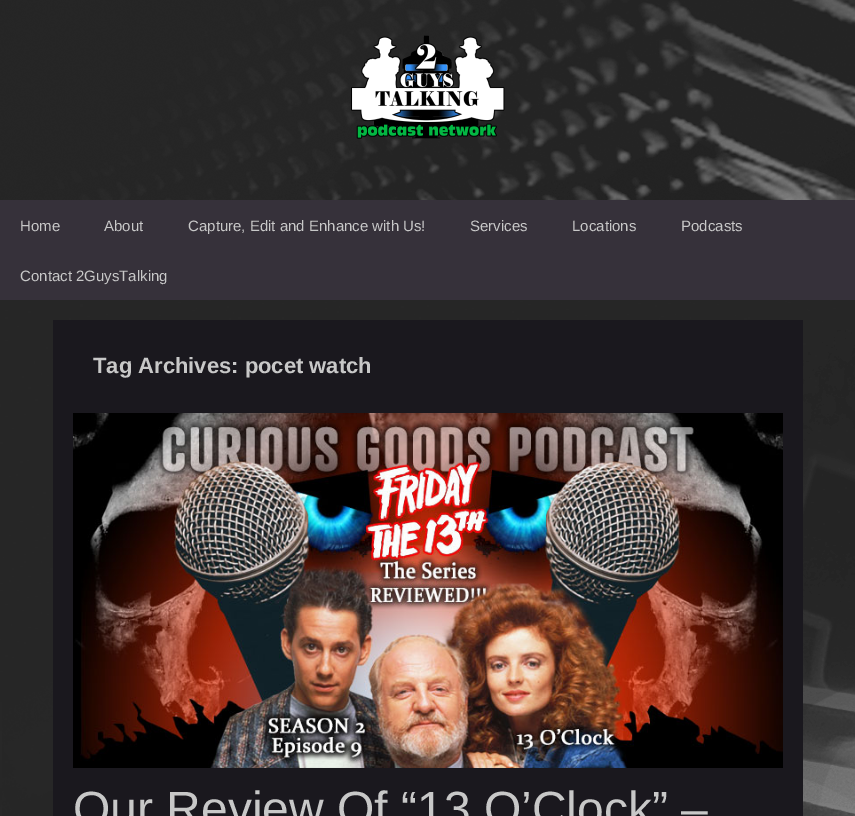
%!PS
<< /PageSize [855 816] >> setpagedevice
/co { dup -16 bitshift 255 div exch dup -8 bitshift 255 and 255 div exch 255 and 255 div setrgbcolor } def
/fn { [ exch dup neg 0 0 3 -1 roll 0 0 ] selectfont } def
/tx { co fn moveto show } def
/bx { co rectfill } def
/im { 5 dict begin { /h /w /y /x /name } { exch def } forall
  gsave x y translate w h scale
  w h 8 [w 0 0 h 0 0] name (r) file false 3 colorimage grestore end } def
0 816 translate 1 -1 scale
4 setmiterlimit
0 0 855 816 16#FFFFFF bx
(media/1.raw) 0 300 855 516 im
(media/2.raw) 0 0 855 200 im
(media/3.raw) 351 35 154 104 im
0 200 855 100 16#36313A bx
53 320 750 496 16#1A181E bx
(media/4.raw) 73 413 710 355 im
(Home) 20 231 /LiberationSans-Regular 15 16#C8C8C8 tx
(About) 104 231 /LiberationSans-Regular 15 16#C8C8C8 tx
(Capture, Edit and Enhance with Us!) 188 231 /LiberationSans-Regular 15 16#C8C8C8 tx
(Services) 470 231 /LiberationSans-Regular 15 16#C8C8C8 tx
(Locations) 572 231 /LiberationSans-Regular 15 16#C8C8C8 tx
(Podcasts) 681 231 /LiberationSans-Regular 15 16#C8C8C8 tx
(Contact 2GuysTalking) 20 281 /LiberationSans-Regular 15 16#C8C8C8 tx
(Tag Archives: pocet watch) 93 373 /LiberationSans-Bold 22 16#C8C8C8 tx
(Our Review Of “13 O’Clock” –) 73 825 /LiberationSans-Regular 48 16#C8C8C8 tx
showpage
